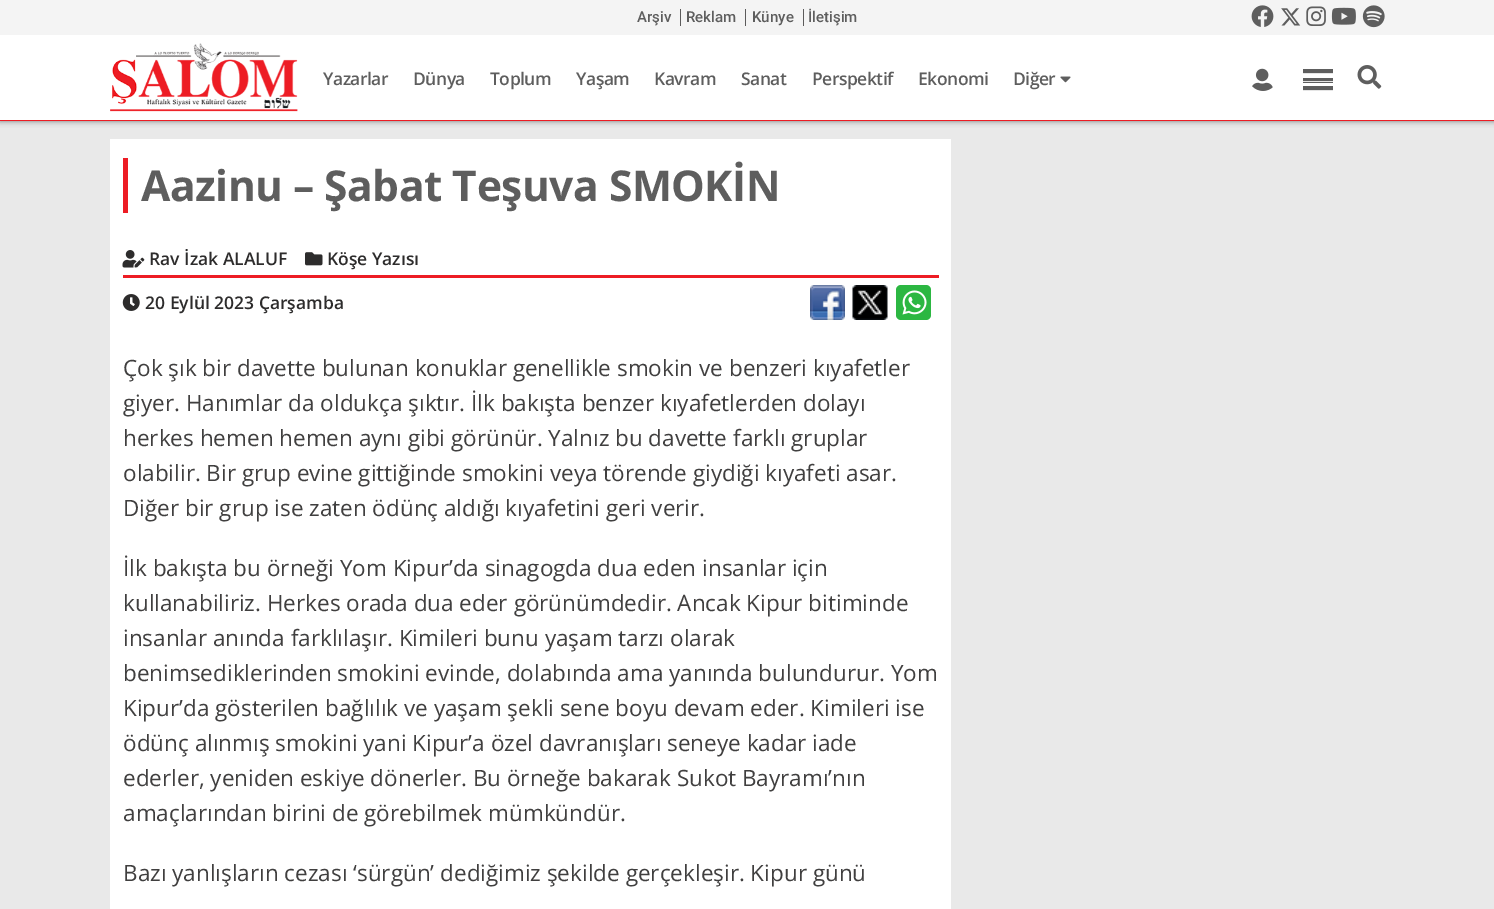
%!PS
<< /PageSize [1494 909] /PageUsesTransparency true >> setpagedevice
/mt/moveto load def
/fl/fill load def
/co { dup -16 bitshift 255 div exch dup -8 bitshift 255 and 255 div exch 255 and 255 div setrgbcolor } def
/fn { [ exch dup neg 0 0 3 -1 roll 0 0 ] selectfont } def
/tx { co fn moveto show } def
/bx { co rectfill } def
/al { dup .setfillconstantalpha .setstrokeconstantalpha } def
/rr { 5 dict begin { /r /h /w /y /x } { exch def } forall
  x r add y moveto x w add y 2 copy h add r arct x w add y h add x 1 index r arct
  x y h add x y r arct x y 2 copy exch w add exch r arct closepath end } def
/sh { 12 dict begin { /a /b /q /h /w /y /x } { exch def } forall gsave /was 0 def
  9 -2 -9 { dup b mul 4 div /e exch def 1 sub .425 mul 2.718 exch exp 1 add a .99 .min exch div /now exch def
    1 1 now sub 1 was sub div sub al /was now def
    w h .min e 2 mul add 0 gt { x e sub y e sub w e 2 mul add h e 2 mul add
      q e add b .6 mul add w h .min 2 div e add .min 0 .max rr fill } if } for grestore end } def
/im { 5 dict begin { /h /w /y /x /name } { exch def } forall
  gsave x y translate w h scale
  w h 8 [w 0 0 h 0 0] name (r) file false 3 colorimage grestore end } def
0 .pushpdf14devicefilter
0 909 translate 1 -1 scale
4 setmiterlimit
0 0 1494 909 16#E9E9E9 bx
16#000000 co
0 35 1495 86 0 3 .5 sh
0 0 1494 35 16#F4F4F4 bx
680 9 1 17 16#5C5B5B bx
745 9 1 17 16#5C5B5B bx
803 9 1 17 16#5C5B5B bx
(media/1.raw) 1251 5 23 22 im
(media/2.raw) 1281 8 20 18 im
(media/3.raw) 1306 6 20 20 im
(media/4.raw) 1331 7 25 18 im
(media/5.raw) 1362 5 23 23 im
0 35 1494 85 16#FFFFFF bx
0 120 1494 1 16#ED1C24 bx
(media/6.raw) 110 43 188 69 im
(media/7.raw) 1060 76 11 7 im
(media/8.raw) 1252 68 21 23 im
1303 69 30 4 16#5E5E5E bx
1303 73 30 1 16#E5E5E5 bx
1303 78 30 5 16#5E5E5E bx
1303 81 30 1 16#E5E5E5 bx
1303 86 30 4 16#5E5E5E bx
1303 90 30 1 16#E5E5E5 bx
(media/9.raw) 1357 65 25 24 im
110 139 841 770 16#FFFFFF bx
123 158 5 55 16#ED1C24 bx
123 275 816 3 16#ED1C24 bx
(media/10.raw) 122 250 23 18 im
(media/11.raw) 305 252 18 14 im
(media/12.raw) 122 294 18 17 im
(media/13.raw) 810 285 35 35 im
(media/14.raw) 852 285 36 35 im
16#2CB742 co
896 285 35 35 5 rr fl
(media/15.raw) 902 290 25 25 im
(Arşiv) 637 22 /Roboto-Medium 15 16#5E5E5E tx
(Reklam) 686 22 /Roboto-Medium 15 16#5E5E5E tx
(Künye) 752 22 /Roboto-Medium 15 16#5E5E5E tx
(İletişim) 808 22 /Roboto-Medium 15 16#5E5E5E tx
/OpenSans-SemiBold 17.5 fn
323 85 mt -.5 0 (Yazarlar) ashow
413 85 mt -.5 0 (Dünya) ashow
490 85 mt -.5 0 (Toplum) ashow
576 85 mt -.5 0 (Yaşam) ashow
654 85 mt -.5 0 (Kavram) ashow
741 85 mt -.5 0 (Sanat) ashow
812 85 mt -.5 0 (Perspektif) ashow
918 85 mt -.5 0 (Ekonomi) ashow
1013 85 mt -.5 0 (Diğer) ashow
/OpenSans-Bold 42.5 fn
141 201 mt -.5 0 (Aazinu – Şabat Teşuva SMOKİN) ashow
(Rav İzak ALALUF) 149 265 /OpenSans-SemiBold 17.5 16#2D2C2C tx
(Köşe Yazısı) 327 265 /OpenSans-SemiBold 17.5 16#2D2C2C tx
(20 Eylül 2023 Çarşamba) 145 309 /OpenSans-SemiBold 17.5 16#2D2C2C tx
(Çok şık bir davette bulunan konuklar genellikle smokin ve benzeri kıyafetler) 123 376 /OpenSans-Regular 22.5 16#403F3F tx
(giyer. Hanımlar da oldukça şıktır. İlk bakışta benzer kıyafetlerden dolayı) 123 411 /OpenSans-Regular 22.5 16#403F3F tx
(herkes hemen hemen aynı gibi görünür. Yalnız bu davette farklı gruplar) 123 446 /OpenSans-Regular 22.5 16#403F3F tx
(olabilir. Bir grup evine gittiğinde smokini veya törende giydiği kıyafeti asar.) 123 481 /OpenSans-Regular 22.5 16#403F3F tx
(Diğer bir grup ise zaten ödünç aldığı kıyafetini geri verir.) 123 516 /OpenSans-Regular 22.5 16#403F3F tx
(İlk bakışta bu örneği Yom Kipur’da sinagogda dua eden insanlar için) 123 576 /OpenSans-Regular 22.5 16#403F3F tx
(kullanabiliriz. Herkes orada dua eder görünümdedir. Ancak Kipur bitiminde) 123 611 /OpenSans-Regular 22.5 16#403F3F tx
(insanlar anında farklılaşır. Kimileri bunu yaşam tarzı olarak) 123 646 /OpenSans-Regular 22.5 16#403F3F tx
(benimsediklerinden smokini evinde, dolabında ama yanında bulundurur. Yom) 123 681 /OpenSans-Regular 22.5 16#403F3F tx
(Kipur’da gösterilen bağlılık ve yaşam şekli sene boyu devam eder. Kimileri ise) 123 716 /OpenSans-Regular 22.5 16#403F3F tx
(ödünç alınmış smokini yani Kipur’a özel davranışları seneye kadar iade) 123 751 /OpenSans-Regular 22.5 16#403F3F tx
(ederler, yeniden eskiye dönerler. Bu örneğe bakarak Sukot Bayramı’nın) 123 786 /OpenSans-Regular 22.5 16#403F3F tx
(amaçlarından birini de görebilmek mümkündür.) 123 821 /OpenSans-Regular 22.5 16#403F3F tx
(Bazı yanlışların cezası ‘sürgün’ dediğimiz şekilde gerçekleşir. Kipur günü) 123 881 /OpenSans-Regular 22.5 16#403F3F tx
.poppdf14devicefilter showpage
